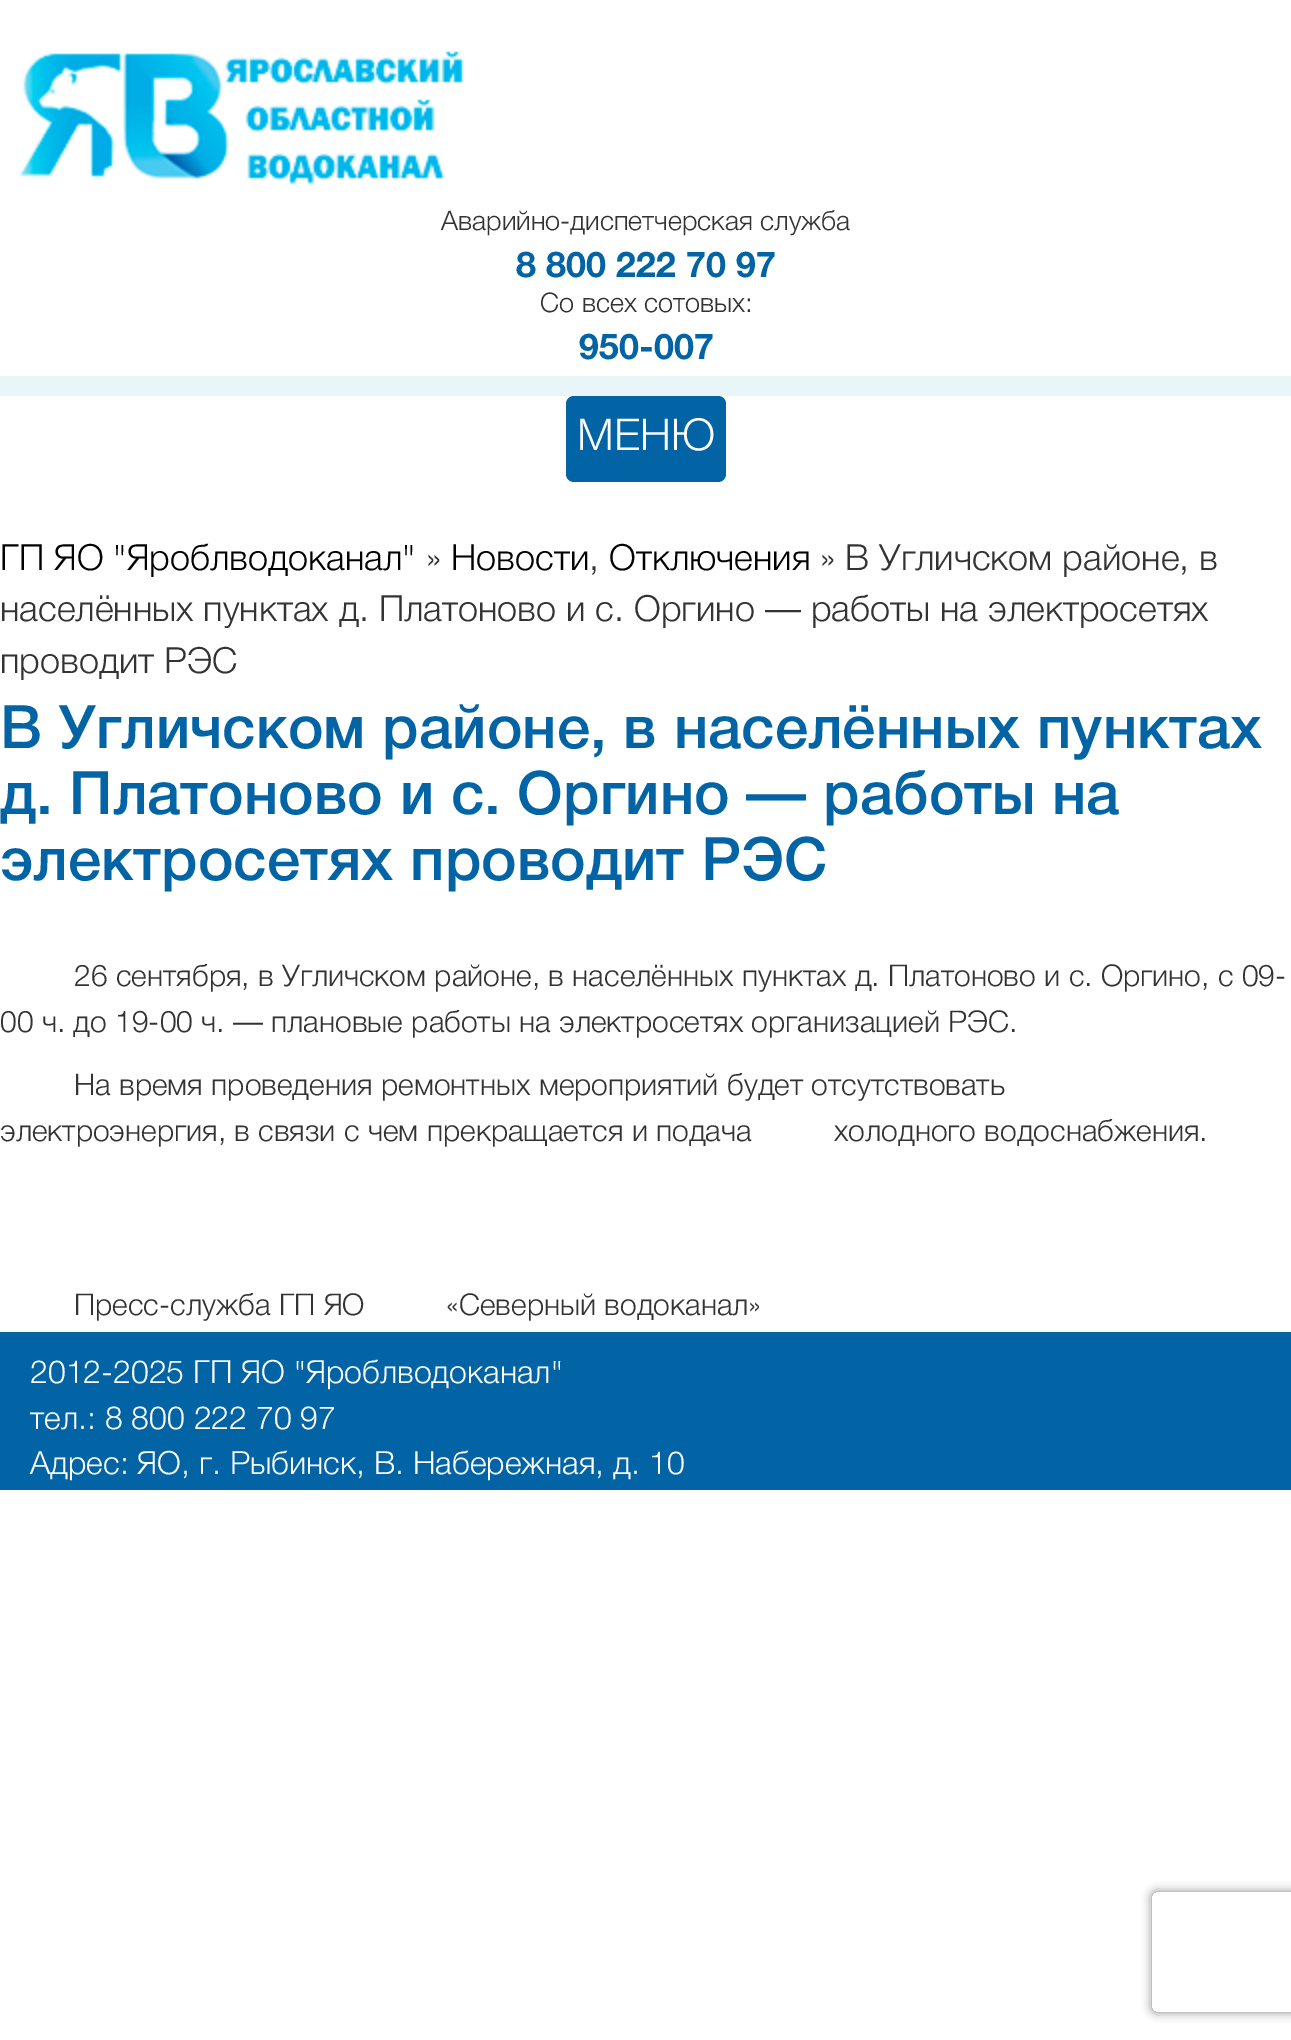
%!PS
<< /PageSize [1291 2040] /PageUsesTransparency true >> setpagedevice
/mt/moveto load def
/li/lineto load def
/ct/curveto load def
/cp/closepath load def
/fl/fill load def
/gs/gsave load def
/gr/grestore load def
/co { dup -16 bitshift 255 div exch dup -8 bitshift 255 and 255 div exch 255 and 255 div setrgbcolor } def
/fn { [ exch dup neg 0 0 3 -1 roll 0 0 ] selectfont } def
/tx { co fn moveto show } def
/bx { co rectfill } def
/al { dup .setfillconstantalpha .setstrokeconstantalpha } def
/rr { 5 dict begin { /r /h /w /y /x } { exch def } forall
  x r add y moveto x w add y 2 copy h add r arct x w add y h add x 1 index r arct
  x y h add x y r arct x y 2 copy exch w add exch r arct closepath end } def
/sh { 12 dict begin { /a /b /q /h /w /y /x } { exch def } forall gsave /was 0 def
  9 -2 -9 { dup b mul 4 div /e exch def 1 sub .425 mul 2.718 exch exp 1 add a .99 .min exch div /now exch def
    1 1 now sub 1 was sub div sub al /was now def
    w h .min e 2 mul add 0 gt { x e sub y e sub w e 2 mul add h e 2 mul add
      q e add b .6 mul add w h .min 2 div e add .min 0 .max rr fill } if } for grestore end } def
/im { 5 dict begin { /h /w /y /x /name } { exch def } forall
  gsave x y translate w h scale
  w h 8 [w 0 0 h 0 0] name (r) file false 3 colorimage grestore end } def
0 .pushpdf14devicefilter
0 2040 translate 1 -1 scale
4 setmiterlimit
0 0 1291 2040 16#FFFFFF bx
(media/1.raw) 20 51 443 134 im
16#0264A5 co
566 396 160 86 8 rr fl
0 376 1291 20 16#E8F5F9 bx
0 1332 1291 158 16#0264A5 bx
gs
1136 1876 mt 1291 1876 li 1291 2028 li 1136 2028 li cp 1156 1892 mt 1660 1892 li 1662 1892 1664 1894 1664 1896 ct 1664 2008 li 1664 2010 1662 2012 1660 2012 ct 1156 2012 li 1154 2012 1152 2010 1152 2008 ct 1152 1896 li 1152 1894 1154 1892 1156 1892 ct cp eoclip newpath
16#808080 co
1152 1892 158 120 4 5 1 sh
gr
(Аварийно-диспетчерская служба) 441 230 /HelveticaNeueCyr-Light 27 16#333333 tx
(8 800 222 70 97) 516 277 /HelveticaNeueCyr-Bold 36 16#0264A5 tx
(Со всех сотовых:) 540 312 /HelveticaNeueCyr-Light 27 16#333333 tx
(950-007) 579 359 /HelveticaNeueCyr-Bold 36 16#0264A5 tx
(МЕНЮ) 577 450 /HelveticaNeueCyr-Light 44 16#FFFFFF tx
(ГП ЯО "Яроблводоканал") 0 570 /HelveticaNeueCyr-Light 36 16#000000 tx
(») 426 570 /HelveticaNeueCyr-Light 36 16#333333 tx
(Новости) 451 570 /HelveticaNeueCyr-Light 36 16#000000 tx
(Отключения) 609 570 /HelveticaNeueCyr-Light 36 16#000000 tx
(» В Угличском районе, в) 820 570 /HelveticaNeueCyr-Light 36 16#333333 tx
(,) 589 570 /HelveticaNeueCyr-Light 36 16#333333 tx
(населённых пунктах д. Платоново и с. Оргино — работы на электросетях) 0 621 /HelveticaNeueCyr-Light 36 16#333333 tx
(проводит РЭС) 0 673 /HelveticaNeueCyr-Light 36 16#333333 tx
(В Угличском районе, в населённых пунктах) 0 748 /HelveticaNeueCyr-Medium 60 16#0264A5 tx
(д. Платоново и с. Оргино — работы на) 0 814 /HelveticaNeueCyr-Medium 60 16#0264A5 tx
(электросетях проводит РЭС) 0 880 /HelveticaNeueCyr-Medium 60 16#0264A5 tx
(26 сентября, в Угличском районе, в населённых пунктах д. Платоново и с. Оргино, с 09-) 74 986 /HelveticaNeueCyr-Light 30 16#333333 tx
(00 ч. до 19-00 ч. — плановые работы на электросетях организацией РЭС.) 0 1032 /HelveticaNeueCyr-Light 30 16#333333 tx
(На время проведения ремонтных мероприятий будет отсутствовать) 74 1095 /HelveticaNeueCyr-Light 30 16#333333 tx
(электроэнергия, в связи с чем прекращается и подача) 0 1141 /HelveticaNeueCyr-Light 30 16#333333 tx
(холодного водоснабжения.) 834 1141 /HelveticaNeueCyr-Light 30 16#333333 tx
(Пресс-служба ГП ЯО) 74 1315 /HelveticaNeueCyr-Light 30 16#333333 tx
(«Северный водоканал») 446 1315 /HelveticaNeueCyr-Light 30 16#333333 tx
(2012-2025 ГП ЯО "Яроблводоканал") 30 1383 /HelveticaNeueCyr-Light 32 16#FFFFFF tx
(тел.: 8 800 222 70 97) 30 1429 /HelveticaNeueCyr-Light 32 16#FFFFFF tx
(Адрес: ЯО, г. Рыбинск, В. Набережная, д. 10) 30 1474 /HelveticaNeueCyr-Light 32 16#FFFFFF tx
.poppdf14devicefilter showpage
